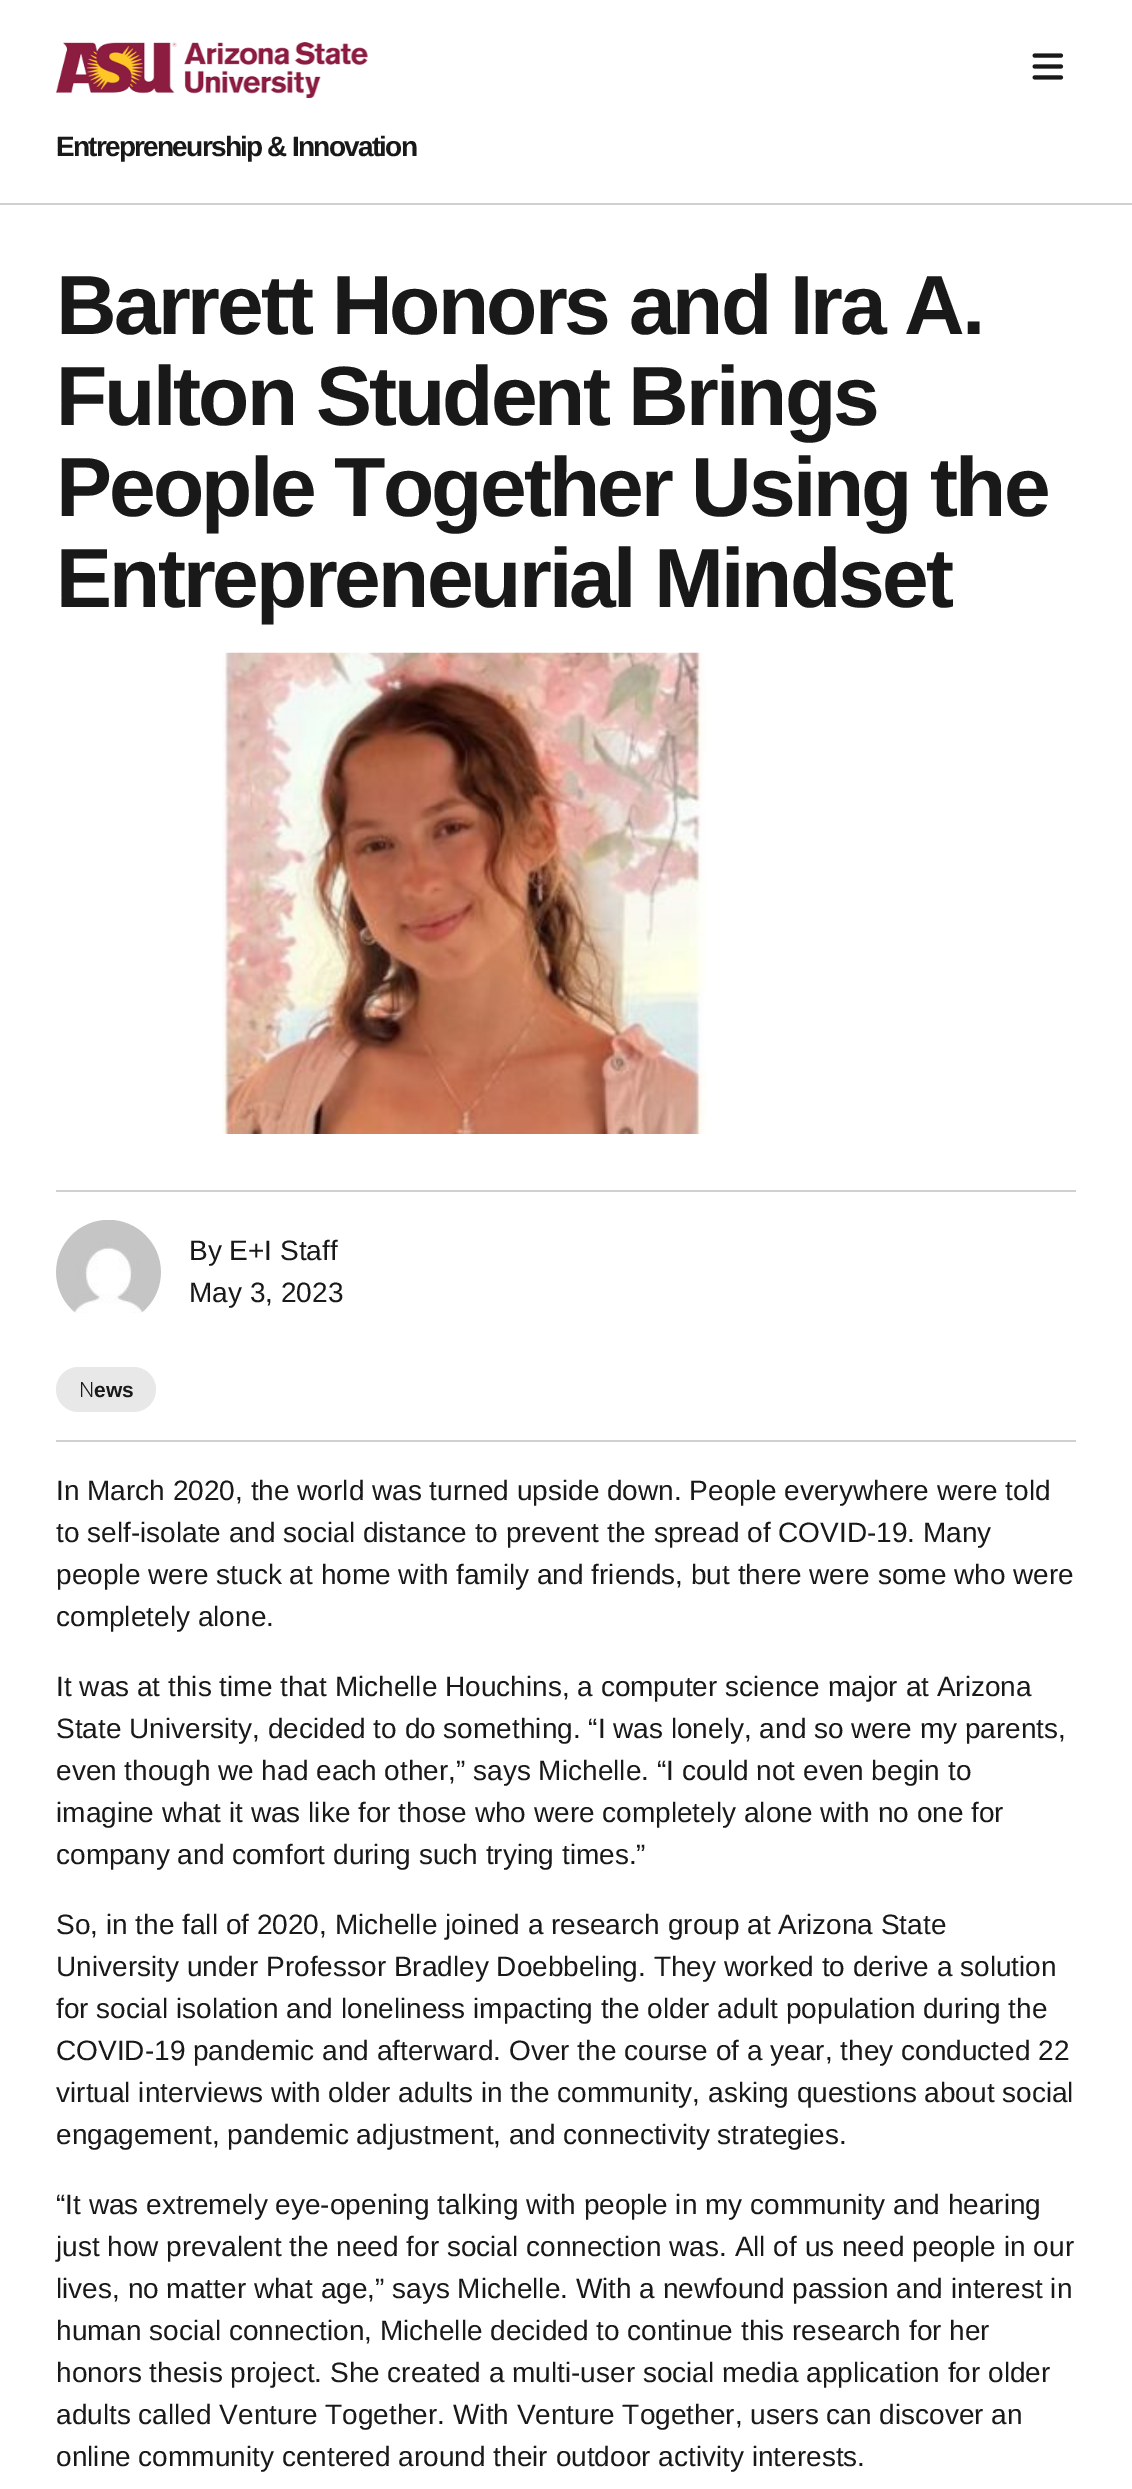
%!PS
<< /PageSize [1132 2489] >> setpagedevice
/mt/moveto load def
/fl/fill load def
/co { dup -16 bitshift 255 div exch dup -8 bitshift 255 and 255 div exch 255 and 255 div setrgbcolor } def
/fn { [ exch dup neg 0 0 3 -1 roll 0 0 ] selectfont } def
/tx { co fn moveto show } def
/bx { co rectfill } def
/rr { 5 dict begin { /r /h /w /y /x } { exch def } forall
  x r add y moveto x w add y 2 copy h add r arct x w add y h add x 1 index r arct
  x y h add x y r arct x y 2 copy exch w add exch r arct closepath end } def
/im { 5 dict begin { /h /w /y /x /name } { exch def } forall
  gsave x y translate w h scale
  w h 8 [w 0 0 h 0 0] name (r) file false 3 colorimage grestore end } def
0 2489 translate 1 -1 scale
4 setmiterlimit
0 0 1132 2489 16#FFFFFF bx
0 203 1132 2 16#D0D0D0 bx
(media/1.raw) 56 42 312 56 im
(media/2.raw) 1032 53 32 27 im
56 1190 1020 2 16#D0D0D0 bx
(media/3.raw) 222 652 485 482 im
56 1440 1020 2 16#D0D0D0 bx
(media/4.raw) 56 1220 105 93 im
16#E8E8E8 co
56 1367 100 45 22.5 rr fl
/LiberationSans-Bold 28 fn
16#191919 co
56 156 mt -1.75 0 (Entrepreneurship & Innovation) ashow
/LiberationSans-Bold 84 fn
56 334 mt -2.9 0 (Barrett Honors and Ira A.) ashow
56 425 mt -2.9 0 (Fulton Student Brings) ashow
56 516 mt -2.9 0 (People Together Using the) ashow
56 607 mt -2.9 0 (Entrepreneurial Mindset) ashow
(By E+I Staff) 189 1260 /LiberationSans-Regular 28 16#191919 tx
(May 3, 2023) 189 1302 /LiberationSans-Regular 28 16#191919 tx
(N) 79 1397 /NotoSans-Light 21 16#191919 tx
(ews) 94 1397 /LiberationSans-Bold 21 16#191919 tx
(In March 2020, the world was turned upside down. People everywhere were told) 56 1500 /LiberationSans-Regular 28 16#191919 tx
(to self-isolate and social distance to prevent the spread of COVID-19. Many) 56 1542 /LiberationSans-Regular 28 16#191919 tx
(people were stuck at home with family and friends, but there were some who were) 56 1584 /LiberationSans-Regular 28 16#191919 tx
(completely alone.) 56 1626 /LiberationSans-Regular 28 16#191919 tx
(It was at this time that Michelle Houchins, a computer science major at Arizona) 56 1696 /LiberationSans-Regular 28 16#191919 tx
(State University, decided to do something. “I was lonely, and so were my parents,) 56 1738 /LiberationSans-Regular 28 16#191919 tx
(even though we had each other,” says Michelle. “I could not even begin to) 56 1780 /LiberationSans-Regular 28 16#191919 tx
(imagine what it was like for those who were completely alone with no one for) 56 1822 /LiberationSans-Regular 28 16#191919 tx
(company and comfort during such trying times.”) 56 1864 /LiberationSans-Regular 28 16#191919 tx
(So, in the fall of 2020, Michelle joined a research group at Arizona State) 56 1934 /LiberationSans-Regular 28 16#191919 tx
(University under Professor Bradley Doebbeling. They worked to derive a solution) 56 1976 /LiberationSans-Regular 28 16#191919 tx
(for social isolation and loneliness impacting the older adult population during the) 56 2018 /LiberationSans-Regular 28 16#191919 tx
(COVID-19 pandemic and afterward. Over the course of a year, they conducted 22) 56 2060 /LiberationSans-Regular 28 16#191919 tx
(virtual interviews with older adults in the community, asking questions about social) 56 2102 /LiberationSans-Regular 28 16#191919 tx
(engagement, pandemic adjustment, and connectivity strategies.) 56 2144 /LiberationSans-Regular 28 16#191919 tx
(“It was extremely eye-opening talking with people in my community and hearing) 56 2214 /LiberationSans-Regular 28 16#191919 tx
(just how prevalent the need for social connection was. All of us need people in our) 56 2256 /LiberationSans-Regular 28 16#191919 tx
(lives, no matter what age,” says Michelle. With a newfound passion and interest in) 56 2298 /LiberationSans-Regular 28 16#191919 tx
(human social connection, Michelle decided to continue this research for her) 56 2340 /LiberationSans-Regular 28 16#191919 tx
(honors thesis project. She created a multi-user social media application for older) 56 2382 /LiberationSans-Regular 28 16#191919 tx
(adults called Venture Together. With Venture Together, users can discover an) 56 2424 /LiberationSans-Regular 28 16#191919 tx
(online community centered around their outdoor activity interests.) 56 2466 /LiberationSans-Regular 28 16#191919 tx
showpage
